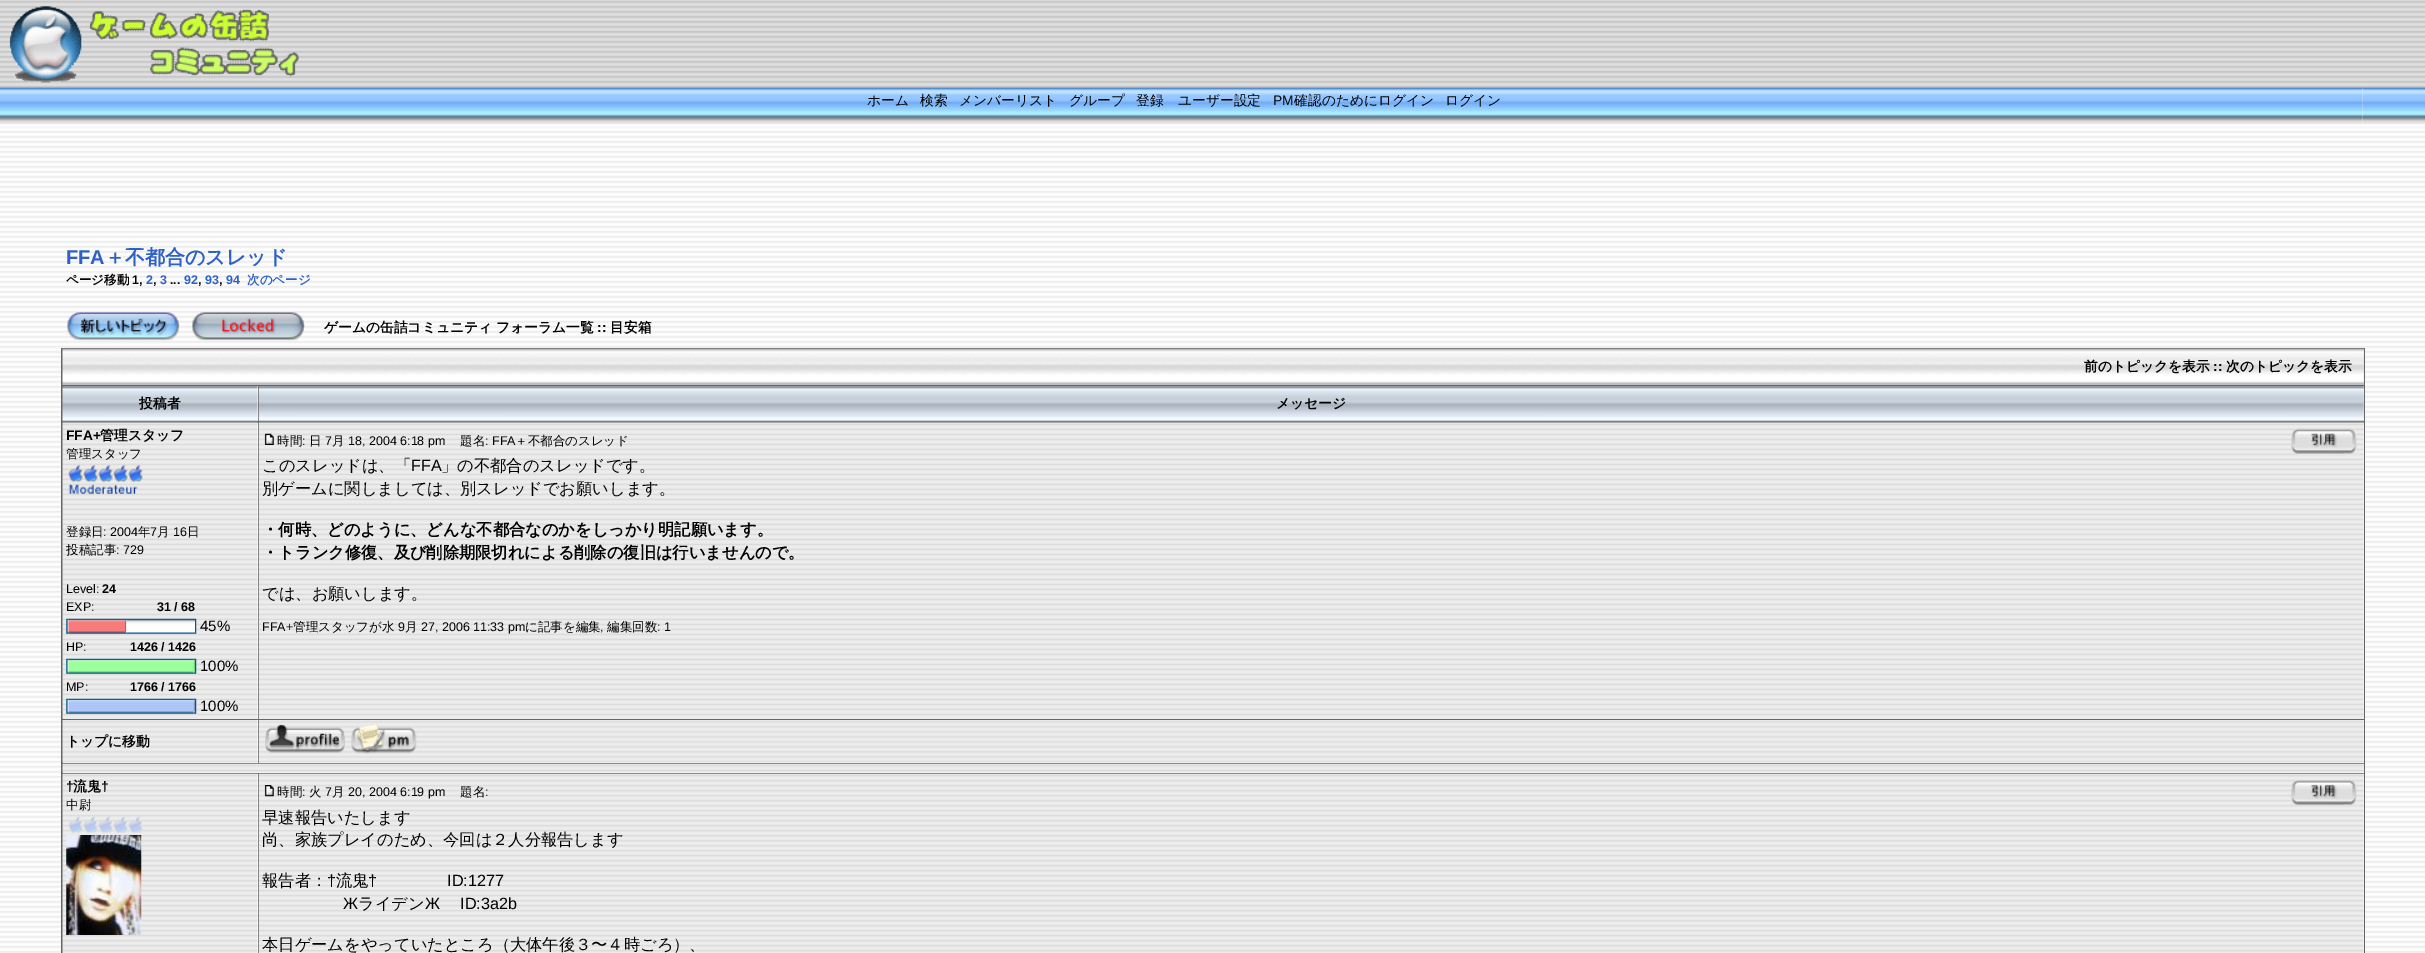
%!PS
<< /PageSize [2425 953] >> setpagedevice
/co { dup -16 bitshift 255 div exch dup -8 bitshift 255 and 255 div exch 255 and 255 div setrgbcolor } def
/fn { [ exch dup neg 0 0 3 -1 roll 0 0 ] selectfont } def
/tx { co fn moveto show } def
/bx { co rectfill } def
/im { 5 dict begin { /h /w /y /x /name } { exch def } forall
  gsave x y translate w h scale
  w h 8 [w 0 0 h 0 0] name (r) file false 3 colorimage grestore end } def
0 953 translate 1 -1 scale
4 setmiterlimit
0 0 2425 953 16#FFFFFF bx
(media/1.raw) 0 87 2425 866 im
(media/2.raw) 0 0 2425 88 im
(media/3.raw) 9 6 290 77 im
(media/4.raw) 0 87 2363 41 im
(media/5.raw) 2362 87 63 41 im
(media/6.raw) 67 312 113 29 im
(media/7.raw) 192 312 113 29 im
61 348 2304 605 16#666666 bx
(media/8.raw) 62 348 2302 37 im
63 386 195 35 16#FFFFFF bx
(media/9.raw) 62 386 196 36 im
259 386 2105 35 16#FFFFFF bx
(media/10.raw) 258 386 2106 36 im
63 423 195 296 16#FFFFFF bx
(media/11.raw) 62 422 196 297 im
(media/12.raw) 68 465 76 29 im
(media/13.raw) 66 618 3 16 im
(media/14.raw) 68 618 57 16 im
(media/15.raw) 125 618 2 16 im
(media/16.raw) 126 618 69 16 im
(media/17.raw) 195 618 2 16 im
(media/18.raw) 66 658 3 16 im
(media/19.raw) 68 658 126 16 im
(media/20.raw) 193 658 2 16 im
(media/17.raw) 195 658 2 16 im
(media/21.raw) 66 698 3 16 im
(media/22.raw) 68 698 126 16 im
(media/23.raw) 193 698 2 16 im
(media/17.raw) 195 698 2 16 im
259 423 2105 296 16#FFFFFF bx
(media/24.raw) 258 422 2106 297 im
(media/25.raw) 264 433 10 12 im
(media/26.raw) 2291 428 69 27 im
63 720 195 43 16#FFFFFF bx
(media/27.raw) 62 720 196 43 im
259 720 2105 43 16#FFFFFF bx
(media/28.raw) 258 720 2106 43 im
(media/29.raw) 265 724 80 29 im
(media/30.raw) 351 724 66 30 im
63 764 2301 9 16#FFFFFF bx
(media/31.raw) 62 763 2302 10 im
257 774 1 179 16#FFFFFF bx
(media/32.raw) 62 773 196 180 im
(media/33.raw) 68 816 75 17 im
(media/34.raw) 66 835 76 100 im
(media/35.raw) 258 773 2106 180 im
(media/36.raw) 264 785 10 12 im
(media/37.raw) 2291 780 69 26 im
(ホーム) 867 105 /WenQuanYiZenHei-Medium 13.75 16#000000 tx
(検索) 920 105 /WenQuanYiZenHei-Medium 13.75 16#000000 tx
(メンバーリスト) 959 105 /WenQuanYiZenHei-Medium 13.75 16#000000 tx
(グループ) 1069 105 /WenQuanYiZenHei-Medium 13.75 16#000000 tx
(登録) 1136 105 /WenQuanYiZenHei-Medium 13.75 16#000000 tx
(ユーザー設定) 1178 105 /WenQuanYiZenHei-Medium 13.75 16#000000 tx
(PM) 1273 105 /LiberationSans-Regular 13.75 16#000000 tx
(確認のためにログイン) 1294 105 /WenQuanYiZenHei-Medium 13.75 16#000000 tx
(ログイン) 1445 105 /WenQuanYiZenHei-Medium 13.75 16#000000 tx
(FFA) 66 264 /LiberationSans-Bold 20 16#2D60C8 tx
(＋不都合のスレッド) 105 264 /WenQuanYiZenHei-Bold 20 16#2D60C8 tx
(ページ移動) 66 284 /WenQuanYiZenHei-Bold 12.5 16#000000 tx
(1,) 132 284 /LiberationSans-Bold 12.5 16#000000 tx
(2) 146 284 /LiberationSans-Bold 12.5 16#2D60C8 tx
(,) 153 284 /LiberationSans-Bold 12.5 16#000000 tx
(3) 160 284 /LiberationSans-Bold 12.5 16#2D60C8 tx
(...) 170 284 /LiberationSans-Bold 12.5 16#000000 tx
(92) 184 284 /LiberationSans-Bold 12.5 16#2D60C8 tx
(,) 198 284 /LiberationSans-Bold 12.5 16#000000 tx
(93) 205 284 /LiberationSans-Bold 12.5 16#2D60C8 tx
(,) 219 284 /LiberationSans-Bold 12.5 16#000000 tx
(94) 226 284 /LiberationSans-Bold 12.5 16#2D60C8 tx
(次のページ) 247 284 /WenQuanYiZenHei-Bold 12.5 16#2D60C8 tx
(ゲームの缶詰コミュニティ フォーラム一覧) 324 332 /WenQuanYiZenHei-Bold 13.75 16#000000 tx
(::) 597 332 /LiberationSans-Bold 13.75 16#000000 tx
(目安箱) 610 332 /WenQuanYiZenHei-Bold 13.75 16#000000 tx
(前のトピックを表示) 2084 371 /WenQuanYiZenHei-Bold 13.75 16#000000 tx
(::) 2213 371 /LiberationSans-Bold 13.75 16#000000 tx
(次のトピックを表示) 2226 371 /WenQuanYiZenHei-Bold 13.75 16#000000 tx
(投稿者) 139 408 /WenQuanYiZenHei-Bold 13.75 16#000000 tx
(メッセージ) 1276 408 /WenQuanYiZenHei-Bold 13.75 16#000000 tx
(FFA+) 66 440 /LiberationSans-Bold 13.75 16#000000 tx
(管理スタッフ) 100 440 /WenQuanYiZenHei-Bold 13.75 16#000000 tx
(管理スタッフ) 66 458 /WenQuanYiZenHei-Medium 12.5 16#000000 tx
(登録日) 66 536 /WenQuanYiZenHei-Medium 12.5 16#000000 tx
(: 2004) 103 536 /LiberationSans-Regular 12.5 16#000000 tx
(年) 138 536 /WenQuanYiZenHei-Medium 12.5 16#000000 tx
(7) 150 536 /LiberationSans-Regular 12.5 16#000000 tx
(月) 157 536 /WenQuanYiZenHei-Medium 12.5 16#000000 tx
(16) 173 536 /LiberationSans-Regular 12.5 16#000000 tx
(日) 187 536 /WenQuanYiZenHei-Medium 12.5 16#000000 tx
(投稿記事) 66 554 /WenQuanYiZenHei-Medium 12.5 16#000000 tx
(: 729) 116 554 /LiberationSans-Regular 12.5 16#000000 tx
(Level:) 66 593 /LiberationSans-Regular 12.5 16#000000 tx
(24) 102 593 /LiberationSans-Bold 12.5 16#000000 tx
(EXP:) 66 611 /LiberationSans-Regular 12.5 16#000000 tx
(31 / 68) 157 611 /LiberationSans-Bold 12.5 16#000000 tx
(45%) 200 631 /LiberationSans-Regular 15 16#000000 tx
(HP:) 66 651 /LiberationSans-Regular 12.5 16#000000 tx
(1426 / 1426) 130 651 /LiberationSans-Bold 12.5 16#000000 tx
(100%) 200 671 /LiberationSans-Regular 15 16#000000 tx
(MP:) 66 691 /LiberationSans-Regular 12.5 16#000000 tx
(1766 / 1766) 130 691 /LiberationSans-Bold 12.5 16#000000 tx
(100%) 200 711 /LiberationSans-Regular 15 16#000000 tx
(時間) 277 445 /WenQuanYiZenHei-Medium 12.5 16#000000 tx
(:) 302 445 /LiberationSans-Regular 12.5 16#000000 tx
(日) 309 445 /WenQuanYiZenHei-Medium 12.5 16#000000 tx
(7) 325 445 /LiberationSans-Regular 12.5 16#000000 tx
(月) 332 445 /WenQuanYiZenHei-Medium 12.5 16#000000 tx
(18, 2004 6:18 pm) 348 445 /LiberationSans-Regular 12.5 16#000000 tx
(題名) 460 445 /WenQuanYiZenHei-Medium 12.5 16#000000 tx
(: FFA) 485 445 /LiberationSans-Regular 12.5 16#000000 tx
(＋不都合のスレッド) 515 445 /WenQuanYiZenHei-Medium 12.5 16#000000 tx
(このスレッドは、「) 262 471 /WenQuanYiZenHei-Medium 16.25 16#000000 tx
(FFA) 411 471 /LiberationSans-Regular 16.25 16#000000 tx
(」の不都合のスレッドです。) 441 471 /WenQuanYiZenHei-Medium 16.25 16#000000 tx
(別ゲームに関しましては、別スレッドでお願いします。) 262 494 /WenQuanYiZenHei-Medium 16.25 16#000000 tx
(・何時、どのように、どんな不都合なのかをしっかり明記願います。) 262 535 /WenQuanYiZenHei-Bold 16.25 16#000000 tx
(・トランク修復、及び削除期限切れによる削除の復旧は行いませんので。) 262 558 /WenQuanYiZenHei-Bold 16.25 16#000000 tx
(では、お願いします。) 262 599 /WenQuanYiZenHei-Medium 16.25 16#000000 tx
(FFA+) 262 631 /LiberationSans-Regular 12.5 16#000000 tx
(管理スタッフが水) 293 631 /WenQuanYiZenHei-Medium 12.5 16#000000 tx
(9) 398 631 /LiberationSans-Regular 12.5 16#000000 tx
(月) 405 631 /WenQuanYiZenHei-Medium 12.5 16#000000 tx
(27, 2006 11:33 pm) 421 631 /LiberationSans-Regular 12.5 16#000000 tx
(に記事を編集) 525 631 /WenQuanYiZenHei-Medium 12.5 16#000000 tx
(,) 600 631 /LiberationSans-Regular 12.5 16#000000 tx
(編集回数) 607 631 /WenQuanYiZenHei-Medium 12.5 16#000000 tx
(: 1) 657 631 /LiberationSans-Regular 12.5 16#000000 tx
(トップに移動) 66 746 /WenQuanYiZenHei-Bold 13.75 16#000000 tx
(†) 66 791 /LiberationSans-Bold 13.75 16#000000 tx
(流鬼) 73 791 /WenQuanYiZenHei-Bold 13.75 16#000000 tx
(†) 101 791 /LiberationSans-Bold 13.75 16#000000 tx
(中尉) 66 809 /WenQuanYiZenHei-Medium 12.5 16#000000 tx
(時間) 277 796 /WenQuanYiZenHei-Medium 12.5 16#000000 tx
(:) 302 796 /LiberationSans-Regular 12.5 16#000000 tx
(火) 309 796 /WenQuanYiZenHei-Medium 12.5 16#000000 tx
(7) 325 796 /LiberationSans-Regular 12.5 16#000000 tx
(月) 332 796 /WenQuanYiZenHei-Medium 12.5 16#000000 tx
(20, 2004 6:19 pm) 348 796 /LiberationSans-Regular 12.5 16#000000 tx
(題名) 460 796 /WenQuanYiZenHei-Medium 12.5 16#000000 tx
(:) 485 796 /LiberationSans-Regular 12.5 16#000000 tx
(早速報告いたします) 262 823 /WenQuanYiZenHei-Medium 16.25 16#000000 tx
(尚、家族プレイのため、今回は２人分報告します) 262 845 /WenQuanYiZenHei-Medium 16.25 16#000000 tx
(報告者：) 262 886 /WenQuanYiZenHei-Medium 16.25 16#000000 tx
(†) 327 886 /LiberationSans-Regular 16.25 16#000000 tx
(流鬼) 336 886 /WenQuanYiZenHei-Medium 16.25 16#000000 tx
(†) 368 886 /LiberationSans-Regular 16.25 16#000000 tx
(ID:1277) 447 886 /LiberationSans-Regular 16.25 16#000000 tx
(Ж) 343 909 /LiberationSans-Regular 16.25 16#000000 tx
(ライデン) 358 909 /WenQuanYiZenHei-Medium 16.25 16#000000 tx
(Ж) 425 909 /LiberationSans-Regular 16.25 16#000000 tx
(ID:3a2b) 460 909 /LiberationSans-Regular 16.25 16#000000 tx
(本日ゲームをやっていたところ（大体午後３〜４時ごろ）、) 262 950 /WenQuanYiZenHei-Medium 16.25 16#000000 tx
showpage
